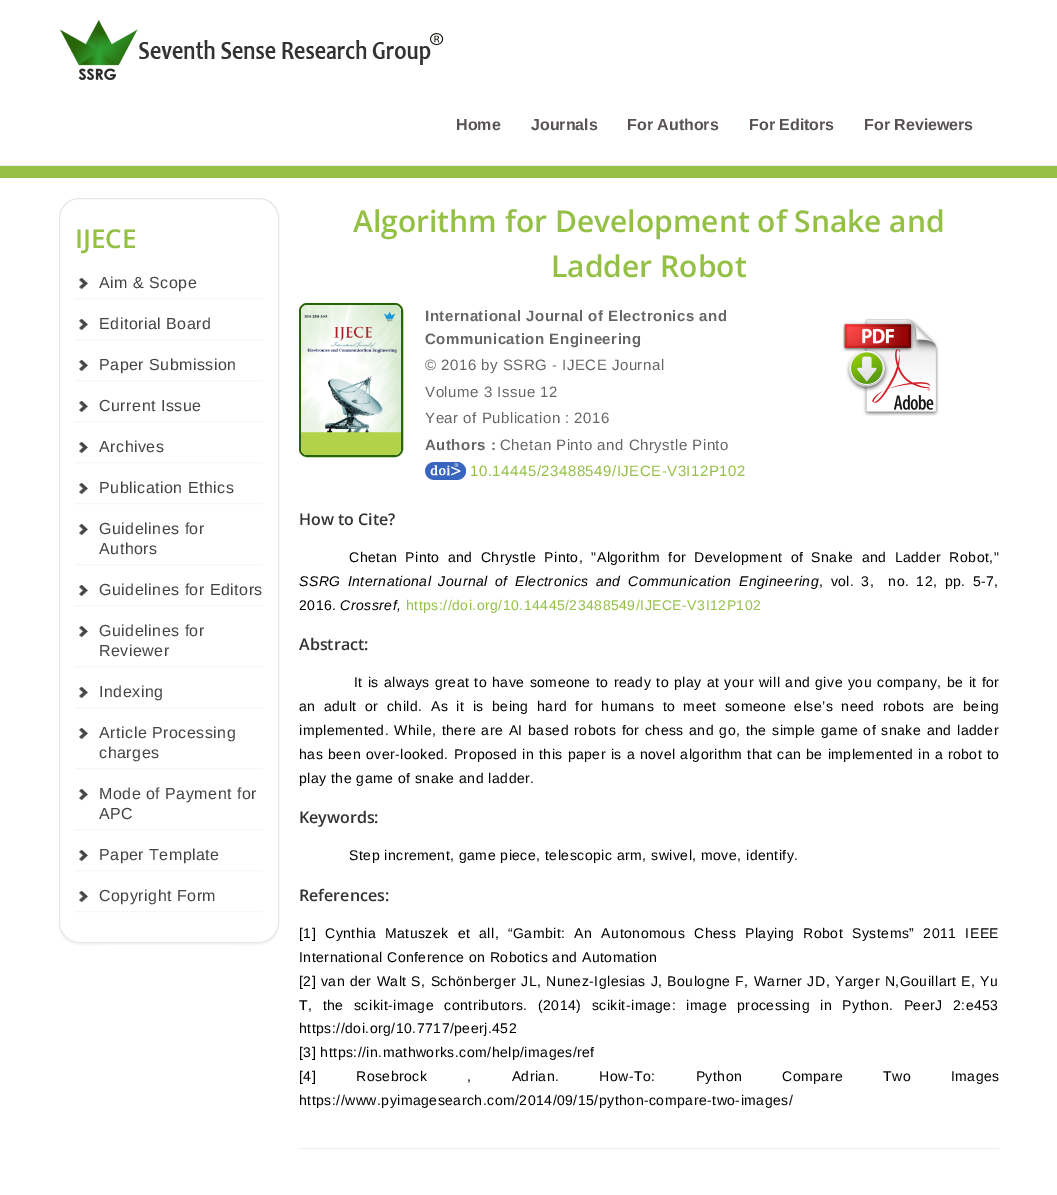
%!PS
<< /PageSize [1057 1195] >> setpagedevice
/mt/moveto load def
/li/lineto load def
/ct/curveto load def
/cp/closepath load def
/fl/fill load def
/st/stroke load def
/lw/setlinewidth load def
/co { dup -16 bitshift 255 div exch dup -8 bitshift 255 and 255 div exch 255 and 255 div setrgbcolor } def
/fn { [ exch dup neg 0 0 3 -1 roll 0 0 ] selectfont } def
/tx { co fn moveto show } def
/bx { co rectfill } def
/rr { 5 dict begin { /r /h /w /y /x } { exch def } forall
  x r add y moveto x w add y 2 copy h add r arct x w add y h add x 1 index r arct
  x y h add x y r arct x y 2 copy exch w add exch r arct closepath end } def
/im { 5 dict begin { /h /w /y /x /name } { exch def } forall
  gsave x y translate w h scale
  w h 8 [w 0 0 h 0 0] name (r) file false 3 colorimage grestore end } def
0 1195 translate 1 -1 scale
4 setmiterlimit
0 0 1057 1195 16#FFFFFF bx
0 165 1057 1 16#EEEEEE bx
(media/1.raw) 60 20 384 60 im
0 166 1057 12 16#94C045 bx
16#F7F7F7 co
59 923 mt 59 952 90 945 109 945 ct 229 945 li 248 945 279 952 279 923 ct 279 934 270 943 259 943 ct 79 943 li 68 943 59 934 59 923 ct cp fl
16#E6E6E6 co
59.5 198.5 219 744 19.5 rr st
(media/2.raw) 79 278 9 12 im
16#EFEFEF co
[1 1] 0 setdash
75 298.5 mt 263 298.5 li st
(media/2.raw) 79 319 9 12 im
75 339.5 mt 263 339.5 li st
(media/2.raw) 79 360 9 12 im
75 380.5 mt 263 380.5 li st
(media/2.raw) 79 401 9 12 im
75 421.5 mt 263 421.5 li st
(media/2.raw) 79 442 9 12 im
75 462.5 mt 263 462.5 li st
(media/2.raw) 79 483 9 12 im
75 503.5 mt 263 503.5 li st
(media/2.raw) 79 524 9 12 im
75 564.5 mt 263 564.5 li st
(media/2.raw) 79 585 9 12 im
75 605.5 mt 263 605.5 li st
(media/2.raw) 79 626 9 12 im
75 666.5 mt 263 666.5 li st
(media/2.raw) 79 687 9 12 im
75 707.5 mt 263 707.5 li st
(media/2.raw) 79 728 9 12 im
75 768.5 mt 263 768.5 li st
(media/2.raw) 79 789 9 12 im
75 829.5 mt 263 829.5 li st
(media/2.raw) 79 850 9 12 im
75 870.5 mt 263 870.5 li st
(media/2.raw) 79 891 9 12 im
75 911.5 mt 263 911.5 li st
299 1148 700 1 16#EEEEEE bx
16#286507 co
2 lw
[] 0 setdash
300 304 102 152 7 rr st
(media/3.raw) 301 305 100 150 im
(media/4.raw) 425 462 41 18 im
(media/5.raw) 843 319 96 97 im
(Home) 456 130 /LiberationSans-Bold 16 16#585252 tx
(Journals) 531 130 /LiberationSans-Bold 16 16#585252 tx
(For Authors) 627 130 /LiberationSans-Bold 16 16#585252 tx
(For Editors) 749 130 /LiberationSans-Bold 16 16#585252 tx
(For Reviewers) 864 130 /LiberationSans-Bold 16 16#585252 tx
(IJECE) 75 248 /OpenSans-SemiBold 26 16#94C045 tx
/LiberationSans-Regular 16 fn
16#444444 co
99 288 mt .5 0 (Aim & Scope) ashow
99 329 mt .5 0 (Editorial Board) ashow
99 370 mt .5 0 (Paper Submission) ashow
99 411 mt .5 0 (Current Issue) ashow
99 452 mt .5 0 (Archives) ashow
99 493 mt .5 0 (Publication Ethics) ashow
99 534 mt .5 0 (Guidelines for) ashow
99 554 mt .5 0 (Authors) ashow
99 595 mt .5 0 (Guidelines for Editors) ashow
99 636 mt .5 0 (Guidelines for) ashow
99 656 mt .5 0 (Reviewer) ashow
99 697 mt .5 0 (Indexing) ashow
99 738 mt .5 0 (Article Processing) ashow
99 758 mt .5 0 (charges) ashow
99 799 mt .5 0 (Mode of Payment for) ashow
99 819 mt .5 0 (APC) ashow
99 860 mt .5 0 (Paper Template) ashow
99 901 mt .5 0 (Copyright Form) ashow
(Algorithm for Development of Snake and) 353 232 /OpenSans-SemiBold 30 16#94C045 tx
(Ladder Robot) 551 277 /OpenSans-SemiBold 30 16#94C045 tx
/LiberationSans-Bold 15 fn
16#666666 co
425 321 mt .5 0 (International Journal of Electronics and) ashow
425 344 mt .5 0 (Communication Engineering) ashow
/LiberationSans-Regular 15 fn
425 370 mt .5 0 (© 2016 by SSRG - IJECE Journal) ashow
425 397 mt .5 0 (Volume 3 Issue 12) ashow
425 423 mt .5 0 (Year of Publication : 2016) ashow
/LiberationSans-Bold 15 fn
425 450 mt .5 0 (Authors :) ashow
/LiberationSans-Regular 15 fn
500 450 mt .5 0 (Chetan Pinto and Chrystle Pinto) ashow
16#94C045 co
470 476 mt .5 0 (10.14445/23488549/IJECE-V3I12P102) ashow
(How to Cite?) 299 525 /OpenSans-SemiBold 16 16#333333 tx
/LiberationSans-Regular 14 fn
16#000000 co
349 562 mt 3.75 0 32 .5 0 (Chetan Pinto and Chrystle Pinto, "Algorithm for Development of Snake and Ladder Robot,") awidthshow
/LiberationSans-Italic 14 fn
299 586 mt 2.75 0 32 .5 0 (SSRG International Journal of Electronics and Communication Engineering) awidthshow
/LiberationSans-Regular 14 fn
819 586 mt 2.75 0 32 .5 0 (, vol. 3,  no. 12, pp. 5-7,) awidthshow
299 610 mt .5 0 (2016.) ashow
/LiberationSans-Italic 14 fn
340 610 mt .5 0 (Crossref,) ashow
/LiberationSans-Regular 14 fn
16#94C045 co
406 610 mt .5 0 (https://doi.org/10.14445/23488549/IJECE-V3I12P102) ashow
(Abstract:) 299 650 /OpenSans-SemiBold 16 16#333333 tx
/LiberationSans-Regular 14 fn
16#000000 co
354 687 mt .7 0 32 .5 0 (It is always great to have someone to ready to play at your will and give you company, be it for) awidthshow
299 711 mt 3.9 0 32 .5 0 (an adult or child. As it is being hard for humans to meet someone else’s need robots are being) awidthshow
299 735 mt 1 0 32 .5 0 (implemented. While, there are AI based robots for chess and go, the simple game of snake and ladder) awidthshow
299 759 mt .4 0 32 .5 0 (has been over-looked. Proposed in this paper is a novel algorithm that can be implemented in a robot to) awidthshow
299 783 mt .5 0 (play the game of snake and ladder.) ashow
(Keywords:) 299 823 /OpenSans-SemiBold 16 16#333333 tx
/LiberationSans-Regular 14 fn
16#000000 co
349 860 mt .5 0 (Step increment, game piece, telescopic arm, swivel, move, identify.) ashow
(References:) 299 901 /OpenSans-SemiBold 16 16#333333 tx
/LiberationSans-Regular 14 fn
16#000000 co
299 938 mt 4.5 0 32 .5 0 ([1] Cynthia Matuszek et all, “Gambit: An Autonomous Chess Playing Robot Systems” 2011 IEEE) awidthshow
299 962 mt .5 0 (International Conference on Robotics and Automation) ashow
299 986 mt .5 0 32 .5 0 ([2] van der Walt S, Schönberger JL, Nunez-Iglesias J, Boulogne F, Warner JD, Yarger N,Gouillart E, Yu) awidthshow
299 1010 mt 5.9 0 32 .5 0 (T, the scikit-image contributors. \(2014\) scikit-image: image processing in Python. PeerJ 2:e453) awidthshow
299 1033 mt .5 0 (https://doi.org/10.7717/peerj.452) ashow
299 1057 mt .5 0 ([3] https://in.mathworks.com/help/images/ref) ashow
299 1081 mt 35.5 0 32 .5 0 ([4] Rosebrock , Adrian. How-To: Python Compare Two Images) awidthshow
299 1105 mt .5 0 (https://www.pyimagesearch.com/2014/09/15/python-compare-two-images/) ashow
showpage
